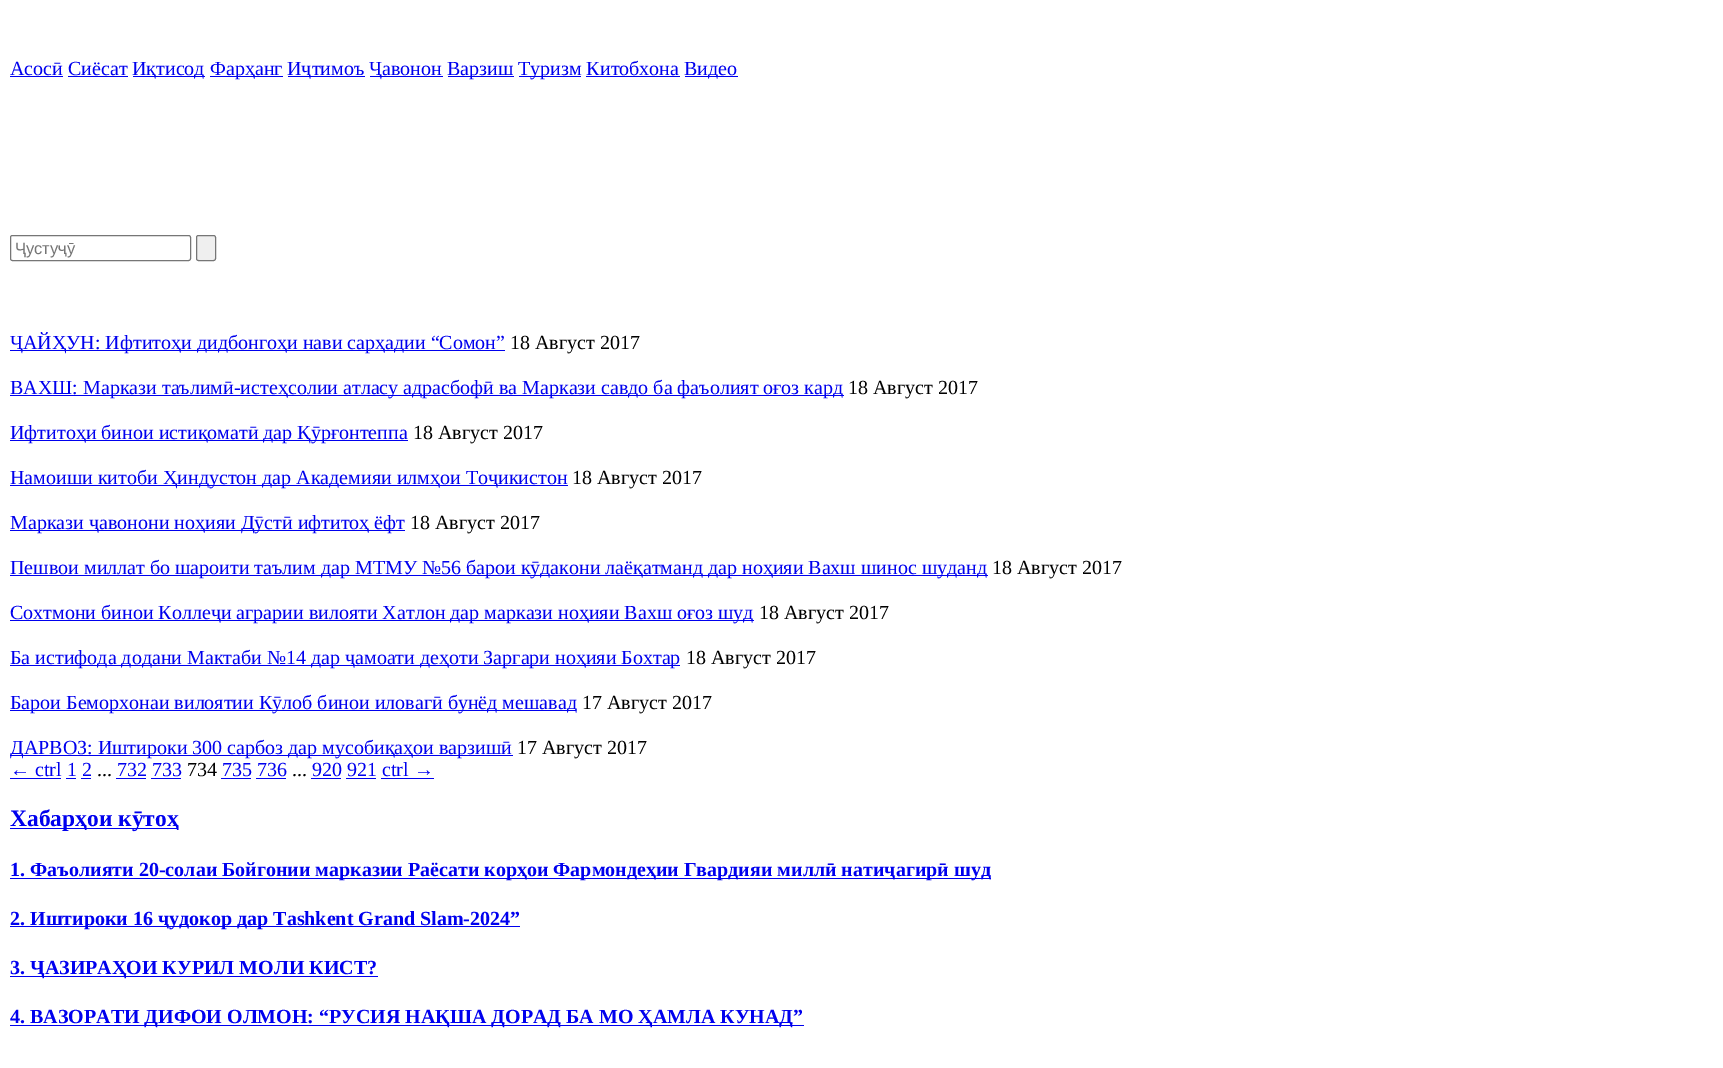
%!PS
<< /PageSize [1723 1068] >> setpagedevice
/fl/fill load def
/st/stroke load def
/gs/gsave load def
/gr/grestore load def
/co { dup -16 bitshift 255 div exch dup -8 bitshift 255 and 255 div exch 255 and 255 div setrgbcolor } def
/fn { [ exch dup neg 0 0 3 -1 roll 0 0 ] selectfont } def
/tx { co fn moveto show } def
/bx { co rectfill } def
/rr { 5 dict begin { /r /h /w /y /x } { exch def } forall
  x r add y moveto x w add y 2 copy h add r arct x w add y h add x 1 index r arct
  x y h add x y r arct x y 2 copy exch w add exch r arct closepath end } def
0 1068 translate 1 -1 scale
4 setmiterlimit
0 0 1723 1068 16#FFFFFF bx
10 76 53 1 16#0000EE bx
133 76 72 1 16#0000EE bx
210 76 73 1 16#0000EE bx
288 76 77 1 16#0000EE bx
370 76 73 1 16#0000EE bx
448 76 66 1 16#0000EE bx
519 76 62 1 16#0000EE bx
685 76 53 1 16#0000EE bx
68 76 60 1 16#0000EE bx
586 76 94 1 16#0000EE bx
16#767676 co
10.5 235.5 180 25 2 rr st
16#EFEFEF co
196.5 235.5 19 25 2 rr gs fl gr
16#767676 co
st
10 350 495 1 16#0000EE bx
10 395 834 1 16#0000EE bx
10 440 398 1 16#0000EE bx
10 485 558 1 16#0000EE bx
10 530 395 1 16#0000EE bx
10 575 978 1 16#0000EE bx
10 620 744 1 16#0000EE bx
10 665 670 1 16#0000EE bx
10 710 566 1 16#0000EE bx
10 755 503 1 16#0000EE bx
10 778 51 1 16#0000EE bx
116 778 30 1 16#0000EE bx
221 778 30 1 16#0000EE bx
311 778 30 1 16#0000EE bx
66 778 10 1 16#0000EE bx
81 778 10 1 16#0000EE bx
151 778 30 1 16#0000EE bx
256 778 30 1 16#0000EE bx
346 778 30 1 16#0000EE bx
381 778 53 1 16#0000EE bx
10 828 168 1 16#0000EE bx
10 878 981 1 16#0000EE bx
10 926 510 1 16#0000EE bx
10 976 368 1 16#0000EE bx
10 1025 794 1 16#0000EE bx
(Асосӣ Сиёсат) 10 75 /LiberationSerif-Regular 20 16#0000EE tx
(Иқтисод) 132 75 /LiberationSerif-Regular 20 16#0000EE tx
(Фарҳанг) 210 75 /LiberationSerif-Regular 20 16#0000EE tx
(Иҷтимоъ) 287 75 /LiberationSerif-Regular 20 16#0000EE tx
(Ҷавонон) 369 75 /LiberationSerif-Regular 20 16#0000EE tx
(Варзиш) 447 75 /LiberationSerif-Regular 20 16#0000EE tx
(Туризм Китобхона) 518 75 /LiberationSerif-Regular 20 16#0000EE tx
(Видео) 684 75 /LiberationSerif-Regular 20 16#0000EE tx
(Ҷустуҷӯ) 15 254 /LiberationSans-Regular 16.5 16#757575 tx
(ҶАЙҲУН: Ифтитоҳи дидбонгоҳи нави сарҳадии “Сомон”) 10 349 /LiberationSerif-Regular 20 16#0000EE tx
(18 Август 2017) 510 349 /LiberationSerif-Regular 20 16#000000 tx
(ВАХШ: Маркази таълимӣ-истеҳсолии атласу адрасбофӣ ва Маркази савдо ба фаъолият оғоз кард) 10 394 /LiberationSerif-Regular 20 16#0000EE tx
(18 Август 2017) 848 394 /LiberationSerif-Regular 20 16#000000 tx
(Ифтитоҳи бинои истиқоматӣ дар Қӯрғонтеппа) 10 439 /LiberationSerif-Regular 20 16#0000EE tx
(18 Август 2017) 413 439 /LiberationSerif-Regular 20 16#000000 tx
(Намоиши китоби Ҳиндустон дар Академияи илмҳои Тоҷикистон) 10 484 /LiberationSerif-Regular 20 16#0000EE tx
(18 Август 2017) 572 484 /LiberationSerif-Regular 20 16#000000 tx
(Маркази ҷавонони ноҳияи Дӯстӣ ифтитоҳ ёфт) 10 529 /LiberationSerif-Regular 20 16#0000EE tx
(18 Август 2017) 410 529 /LiberationSerif-Regular 20 16#000000 tx
(Пешвои миллат бо шароити таълим дар МТМУ №56 барои кӯдакони лаёқатманд дар ноҳияи Вахш шинос шуданд) 10 574 /LiberationSerif-Regular 20 16#0000EE tx
(18 Август 2017) 992 574 /LiberationSerif-Regular 20 16#000000 tx
(Сохтмони бинои Коллеҷи аграрии вилояти Хатлон дар маркази ноҳияи Вахш оғоз шуд) 10 619 /LiberationSerif-Regular 20 16#0000EE tx
(18 Август 2017) 759 619 /LiberationSerif-Regular 20 16#000000 tx
(Ба истифода додани Мактаби №14 дар ҷамоати деҳоти Заргари ноҳияи Бохтар) 10 664 /LiberationSerif-Regular 20 16#0000EE tx
(18 Август 2017) 686 664 /LiberationSerif-Regular 20 16#000000 tx
(Барои Беморхонаи вилоятии Кӯлоб бинои иловагӣ бунёд мешавад) 10 709 /LiberationSerif-Regular 20 16#0000EE tx
(17 Август 2017) 582 709 /LiberationSerif-Regular 20 16#000000 tx
(ДАРВОЗ: Иштироки 300 сарбоз дар мусобиқаҳои варзишӣ) 10 754 /LiberationSerif-Regular 20 16#0000EE tx
(17 Август 2017) 517 754 /LiberationSerif-Regular 20 16#000000 tx
(← ctrl 1 2) 10 776 /LiberationSerif-Regular 20 16#0000EE tx
(...) 97 776 /LiberationSerif-Regular 20 16#000000 tx
(732 733) 117 776 /LiberationSerif-Regular 20 16#0000EE tx
(734) 187 776 /LiberationSerif-Regular 20 16#000000 tx
(735 736) 222 776 /LiberationSerif-Regular 20 16#0000EE tx
(...) 292 776 /LiberationSerif-Regular 20 16#000000 tx
(920 921 ctrl →) 312 776 /LiberationSerif-Regular 20 16#0000EE tx
(Хабарҳои кӯтоҳ) 10 826 /LiberationSerif-Bold 23.5 16#0000EE tx
(1. Фаъолияти 20-солаи Бойгонии марказии Раёсати корҳои Фармондеҳии Гвардияи миллӣ натиҷагирӣ шуд) 10 876 /LiberationSerif-Bold 20 16#0000EE tx
(2. Иштироки 16 ҷудокор дар Tashkent Grand Slam-2024”) 10 925 /LiberationSerif-Bold 20 16#0000EE tx
(3. ҶАЗИРАҲОИ КУРИЛ МОЛИ КИСТ?) 10 974 /LiberationSerif-Bold 20 16#0000EE tx
(4. ВАЗОРАТИ ДИФОИ ОЛМОН: “РУСИЯ НАҚША ДОРАД БА МО ҲАМЛА КУНАД”) 10 1023 /LiberationSerif-Bold 20 16#0000EE tx
showpage
